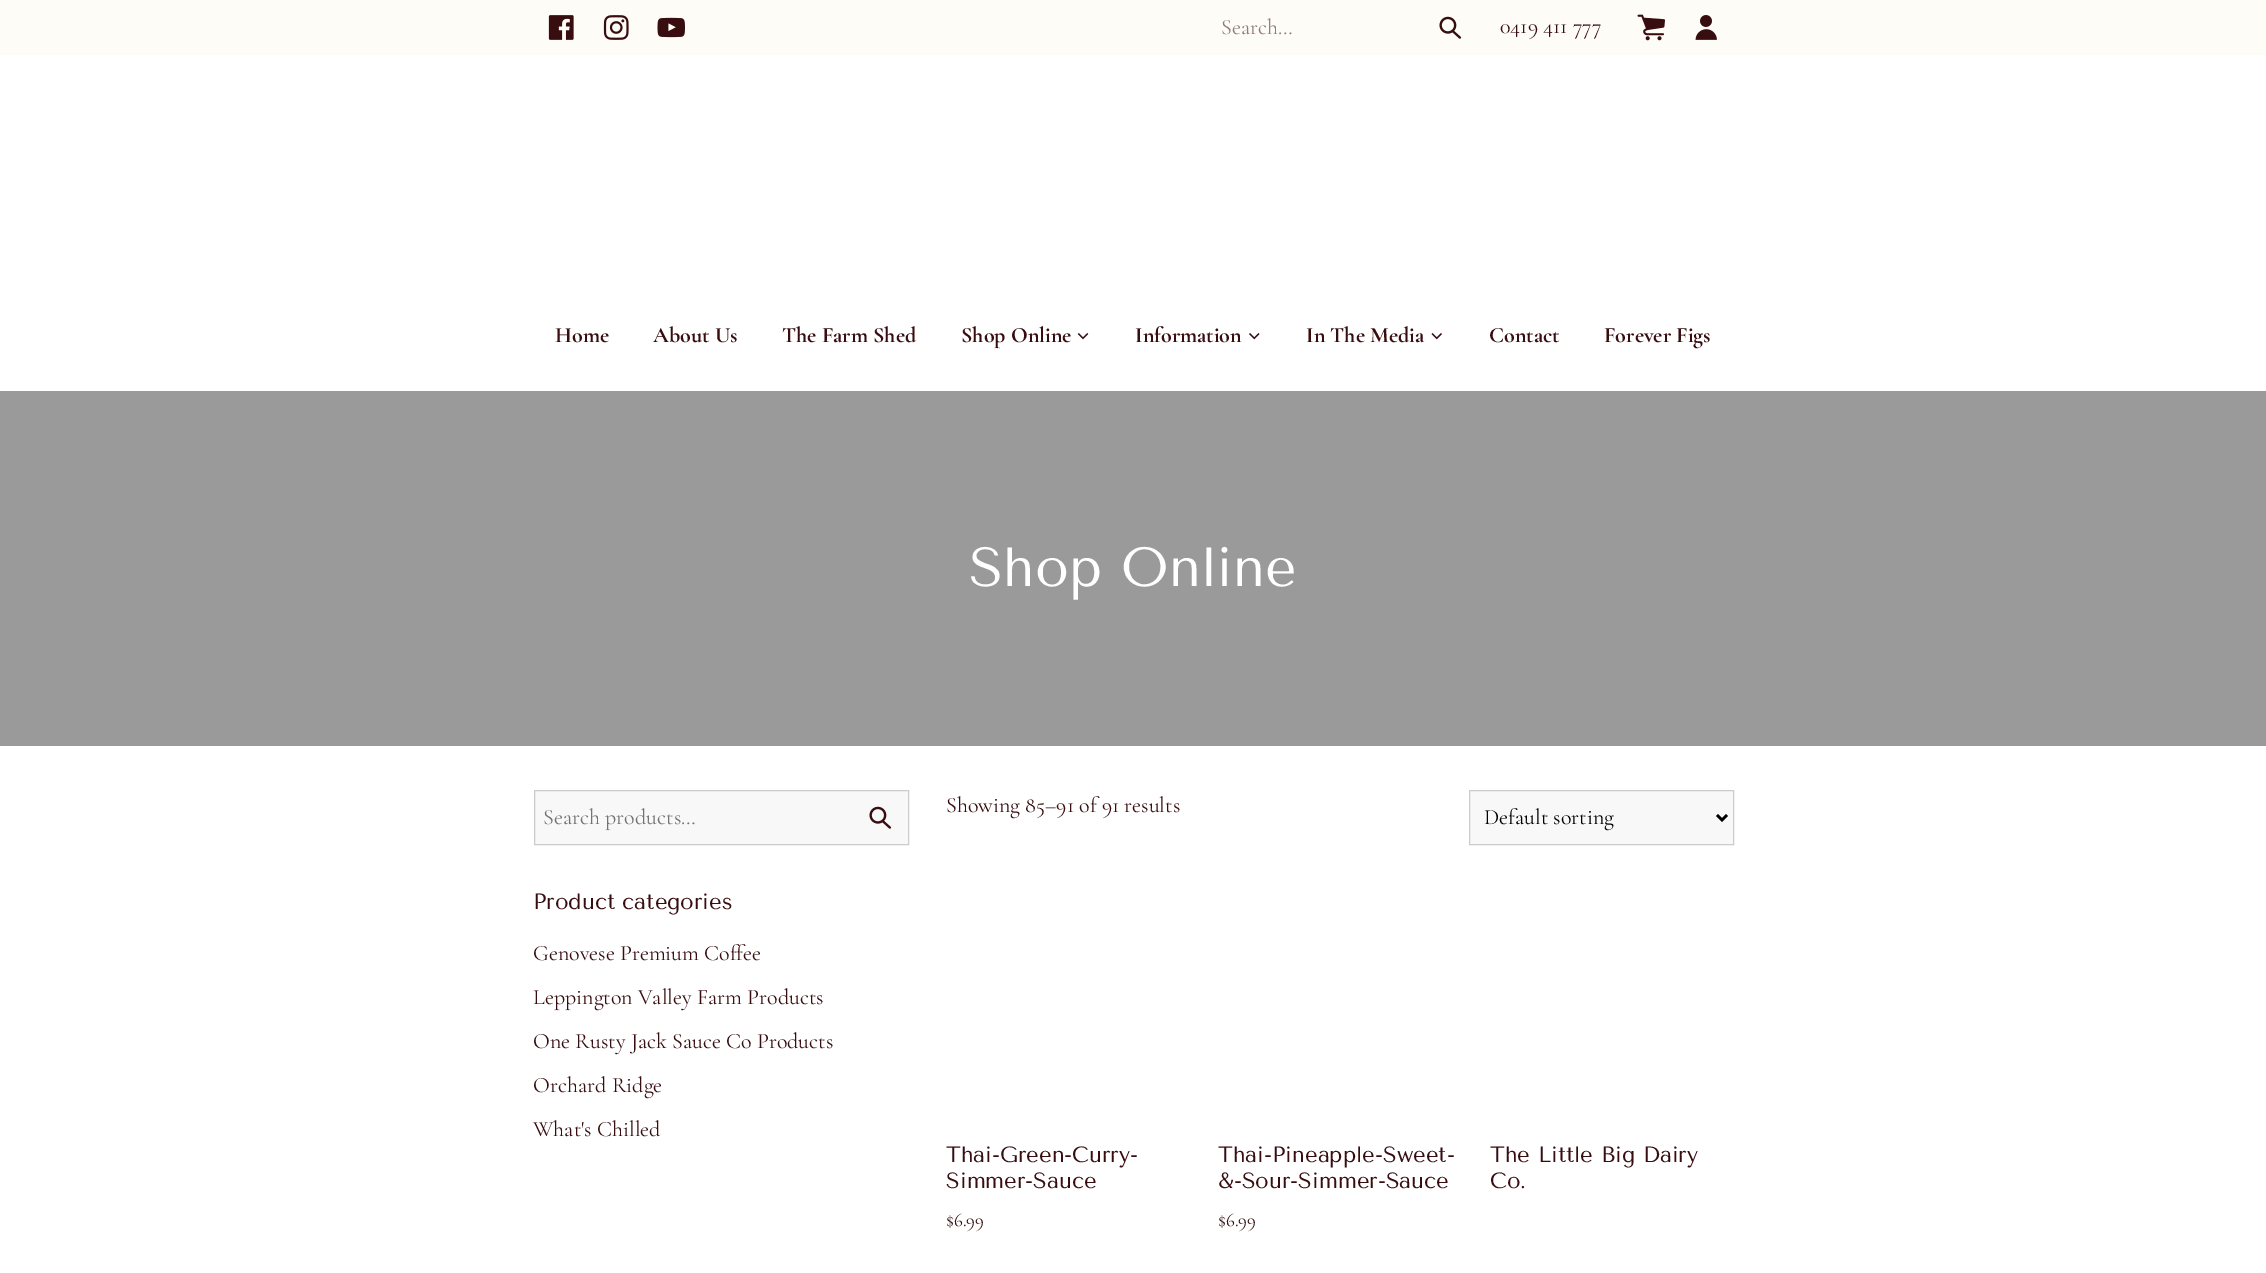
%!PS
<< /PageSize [2266 1273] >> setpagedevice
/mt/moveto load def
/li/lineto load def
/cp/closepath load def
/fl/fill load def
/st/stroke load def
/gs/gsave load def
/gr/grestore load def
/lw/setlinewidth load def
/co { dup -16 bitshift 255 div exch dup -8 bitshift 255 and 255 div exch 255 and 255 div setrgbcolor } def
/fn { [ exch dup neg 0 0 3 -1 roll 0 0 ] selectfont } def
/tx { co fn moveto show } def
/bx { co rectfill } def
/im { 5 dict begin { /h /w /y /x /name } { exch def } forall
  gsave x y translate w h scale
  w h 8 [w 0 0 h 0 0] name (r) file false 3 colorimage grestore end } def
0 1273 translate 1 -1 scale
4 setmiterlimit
0 0 2266 1273 16#FFFFFF bx
0 0 2266 55 16#FEFCF6 bx
(media/1.raw) 548 15 26 25 im
(media/2.raw) 603 15 26 25 im
(media/3.raw) 657 17 28 21 im
(media/4.raw) 1439 16 23 23 im
(media/5.raw) 1637 14 28 27 im
(media/6.raw) 1695 15 22 25 im
(media/7.raw) 1077 333 12 7 im
(media/8.raw) 1249 333 11 7 im
(media/9.raw) 1431 333 11 7 im
0 391 2266 355 16#9A9A9A bx
16#F8F8F8 co
534.5 790.5 mt 908.5 790.5 li 908.5 844.5 li 534.5 844.5 li cp gs fl gr
16#CCCCCC co
st
(media/10.raw) 869 806 23 23 im
16#F8F8F8 co
1469.5 790.5 mt 1733.5 790.5 li 1733.5 844.5 li 1469.5 844.5 li cp gs fl gr
16#CCCCCC co
st
16#000000 co
2.5 lw
1717 815 mt 1722 820 li 1727 815 li st
(Search…) 1221 34 /CormorantGaramond-Light 22 16#937B7A tx
(0419 411 777) 1500 33 /CormorantGaramond-Light 22 16#380D10 tx
(Home) 555 342 /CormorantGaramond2-Light 22 16#380D10 tx
(About Us) 653 342 /CormorantGaramond2-Light 22 16#380D10 tx
(The Farm Shed) 782 342 /CormorantGaramond2-Light 22 16#380D10 tx
(Shop Online) 961 342 /CormorantGaramond2-Light 22 16#380D10 tx
(Information) 1135 342 /CormorantGaramond2-Light 22 16#380D10 tx
(In The Media) 1306 342 /CormorantGaramond2-Light 22 16#380D10 tx
(Contact) 1489 342 /CormorantGaramond2-Light 22 16#380D10 tx
(Forever Figs) 1604 342 /CormorantGaramond2-Light 22 16#380D10 tx
(Shop Online) 969 586 /TenorSans-Regular 55 16#FFFFFF tx
(Search products…) 543 824 /CormorantGaramond-Light 22 16#727272 tx
(Product categories) 533 909 /TenorSans-Regular 22 16#380D10 tx
(Genovese Premium Coffee) 533 960 /CormorantGaramond-Light 22 16#380D10 tx
(Leppington Valley Farm Products) 533 1004 /CormorantGaramond-Light 22 16#380D10 tx
(One Rusty Jack Sauce Co Products) 533 1048 /CormorantGaramond-Light 22 16#380D10 tx
(Orchard Ridge) 533 1092 /CormorantGaramond-Light 22 16#380D10 tx
(What's Chilled) 533 1136 /CormorantGaramond-Light 22 16#380D10 tx
(Showing 85–91 of 91 results) 946 812 /CormorantGaramond-Light 22 16#380D10 tx
(Default sorting) 1484 824 /CormorantGaramond-Light 22 16#000000 tx
(Thai-Green-Curry-) 946 1162 /TenorSans-Regular 22 16#380D10 tx
(Simmer-Sauce) 946 1188 /TenorSans-Regular 22 16#380D10 tx
($6.99) 946 1226 /CormorantGaramond-Light 19 16#380D10 tx
(Thai-Pineapple-Sweet-) 1218 1162 /TenorSans-Regular 22 16#380D10 tx
(&-Sour-Simmer-Sauce) 1218 1188 /TenorSans-Regular 22 16#380D10 tx
($6.99) 1218 1226 /CormorantGaramond-Light 19 16#380D10 tx
(The Little Big Dairy) 1490 1162 /TenorSans-Regular 22 16#380D10 tx
(Co.) 1490 1188 /TenorSans-Regular 22 16#380D10 tx
showpage
